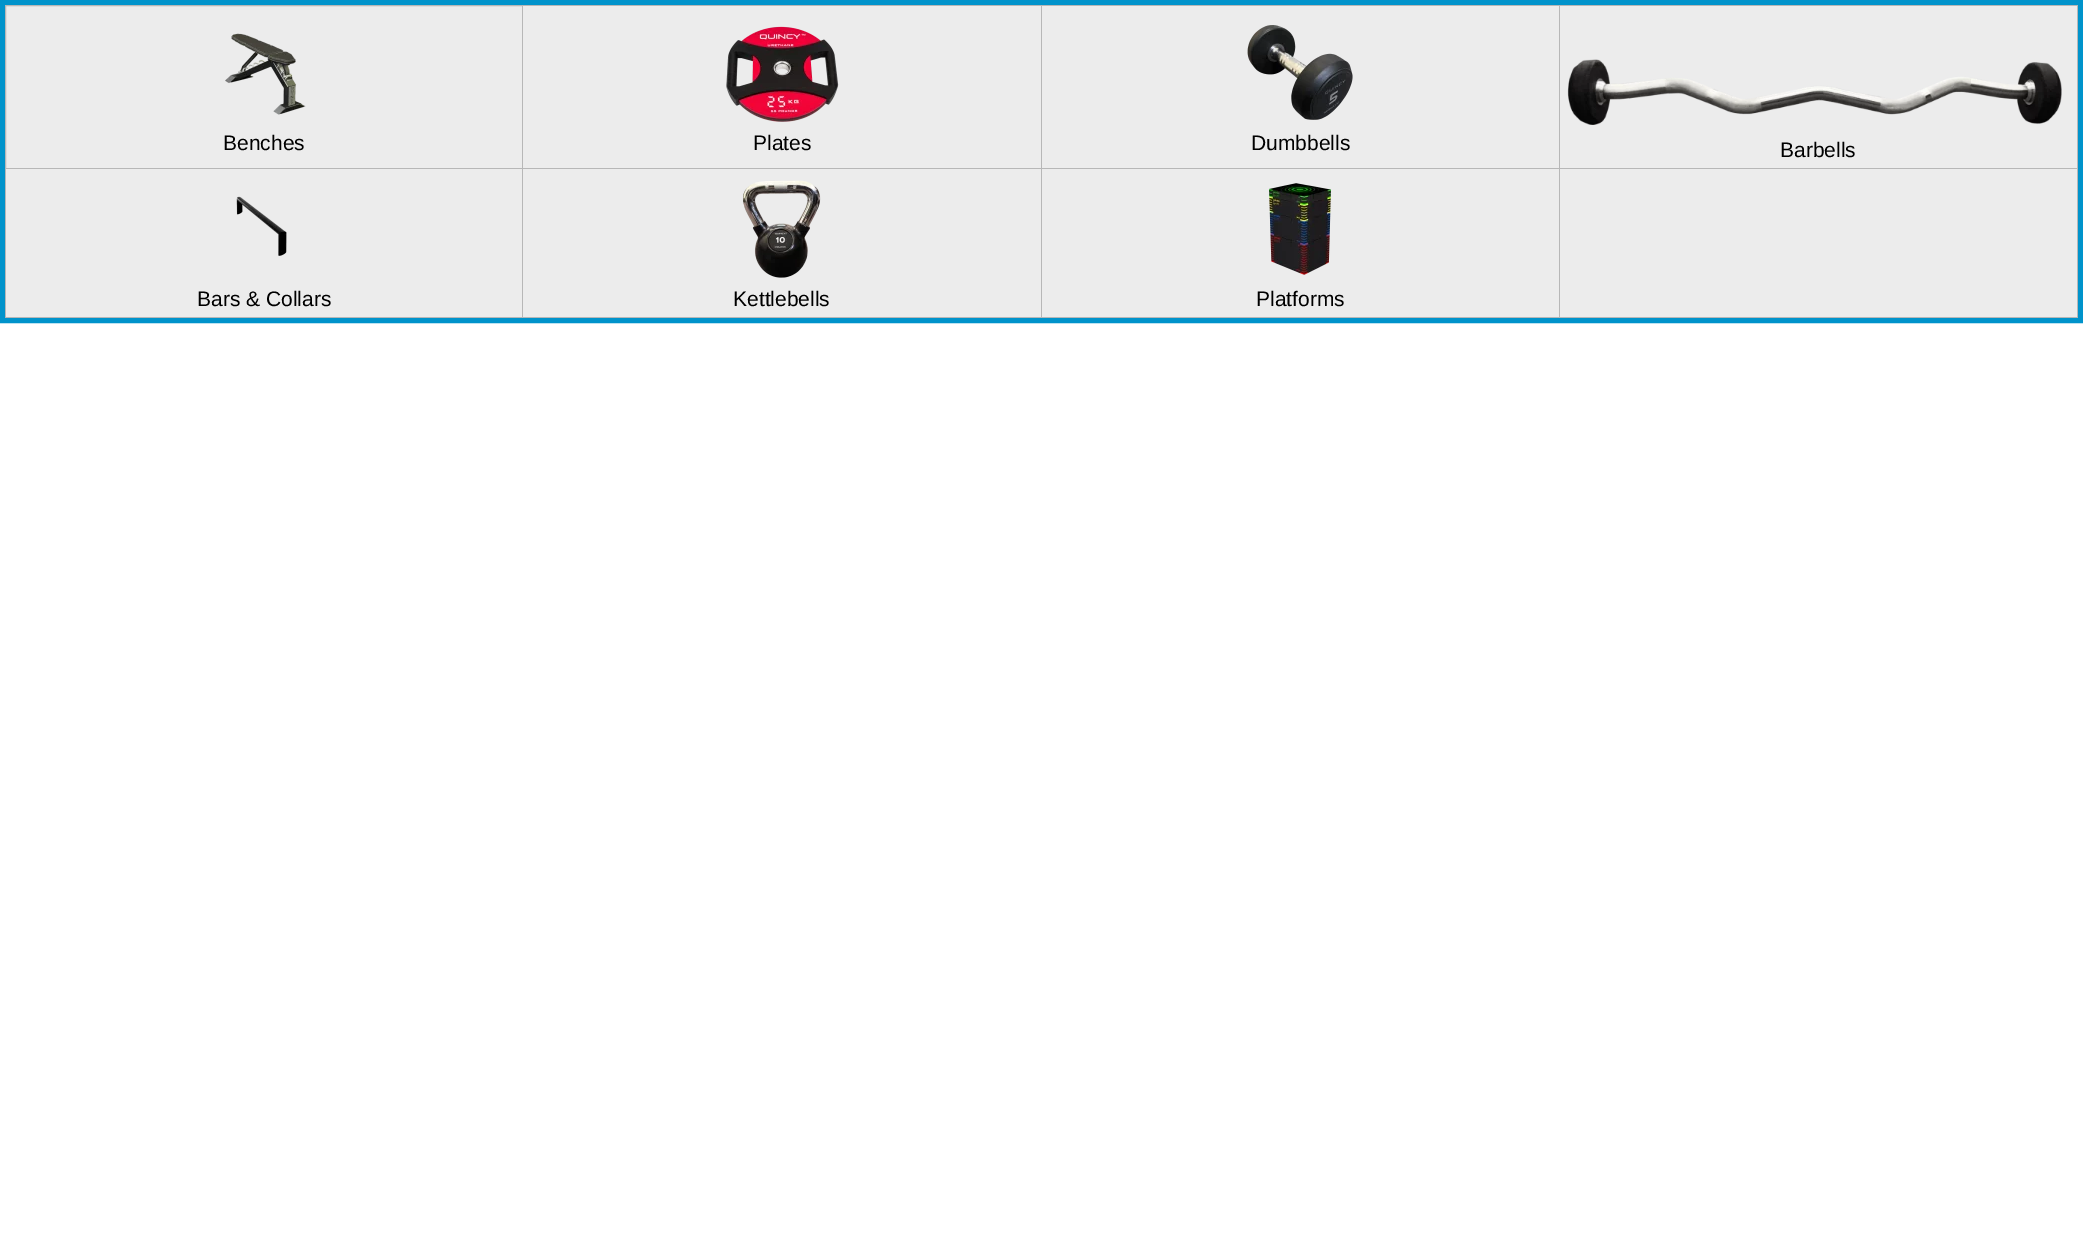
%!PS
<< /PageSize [2083 1237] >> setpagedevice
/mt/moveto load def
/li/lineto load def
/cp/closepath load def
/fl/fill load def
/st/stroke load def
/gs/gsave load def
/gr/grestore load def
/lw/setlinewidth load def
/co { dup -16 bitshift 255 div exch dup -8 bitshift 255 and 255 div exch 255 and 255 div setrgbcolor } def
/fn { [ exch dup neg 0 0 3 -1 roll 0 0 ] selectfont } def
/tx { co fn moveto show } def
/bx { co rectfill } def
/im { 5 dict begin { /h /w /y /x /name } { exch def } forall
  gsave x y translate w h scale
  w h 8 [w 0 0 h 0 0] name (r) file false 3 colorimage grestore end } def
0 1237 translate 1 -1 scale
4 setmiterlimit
0 0 2083 1237 16#FFFFFF bx
16#0093CB co
5 lw
2.5 2.5 2078 318 rectstroke
16#ECECEC co
5.5 5.5 mt 522.5 5.5 li 522.5 168.5 li 5.5 168.5 li cp gs fl gr
16#B7B7B7 co
1 lw
st
(media/1.raw) 225 33 81 82 im
523 6 518 162 16#ECECEC bx
523 5 1555 1 16#B7B7B7 bx
1041 5 1 313 16#B7B7B7 bx
523 168 519 1 16#B7B7B7 bx
(media/2.raw) 726 26 113 96 im
1042 6 517 162 16#ECECEC bx
1559 5 1 313 16#B7B7B7 bx
1042 168 518 1 16#B7B7B7 bx
(media/3.raw) 1247 25 106 95 im
1560 6 517 162 16#ECECEC bx
2077 5 1 313 16#B7B7B7 bx
1560 168 518 1 16#B7B7B7 bx
(media/4.raw) 1567 59 495 66 im
6 169 516 148 16#ECECEC bx
522 169 1 149 16#B7B7B7 bx
5 317 2073 1 16#B7B7B7 bx
5 169 1 149 16#B7B7B7 bx
(media/5.raw) 236 196 51 60 im
523 169 518 148 16#ECECEC bx
(media/6.raw) 743 180 78 98 im
1042 169 517 148 16#ECECEC bx
(media/7.raw) 1269 183 62 92 im
1560 169 517 148 16#ECECEC bx
(Benches) 223 150 /LiberationSans-Regular 21 16#000000 tx
(Plates) 753 150 /LiberationSans-Regular 21 16#000000 tx
(Dumbbells) 1251 150 /LiberationSans-Regular 21 16#000000 tx
(Barbells) 1780 157 /LiberationSans-Regular 21 16#000000 tx
(Bars & Collars) 197 306 /LiberationSans-Regular 21 16#000000 tx
(Kettlebells) 733 306 /LiberationSans-Regular 21 16#000000 tx
(Platforms) 1256 306 /LiberationSans-Regular 21 16#000000 tx
showpage
